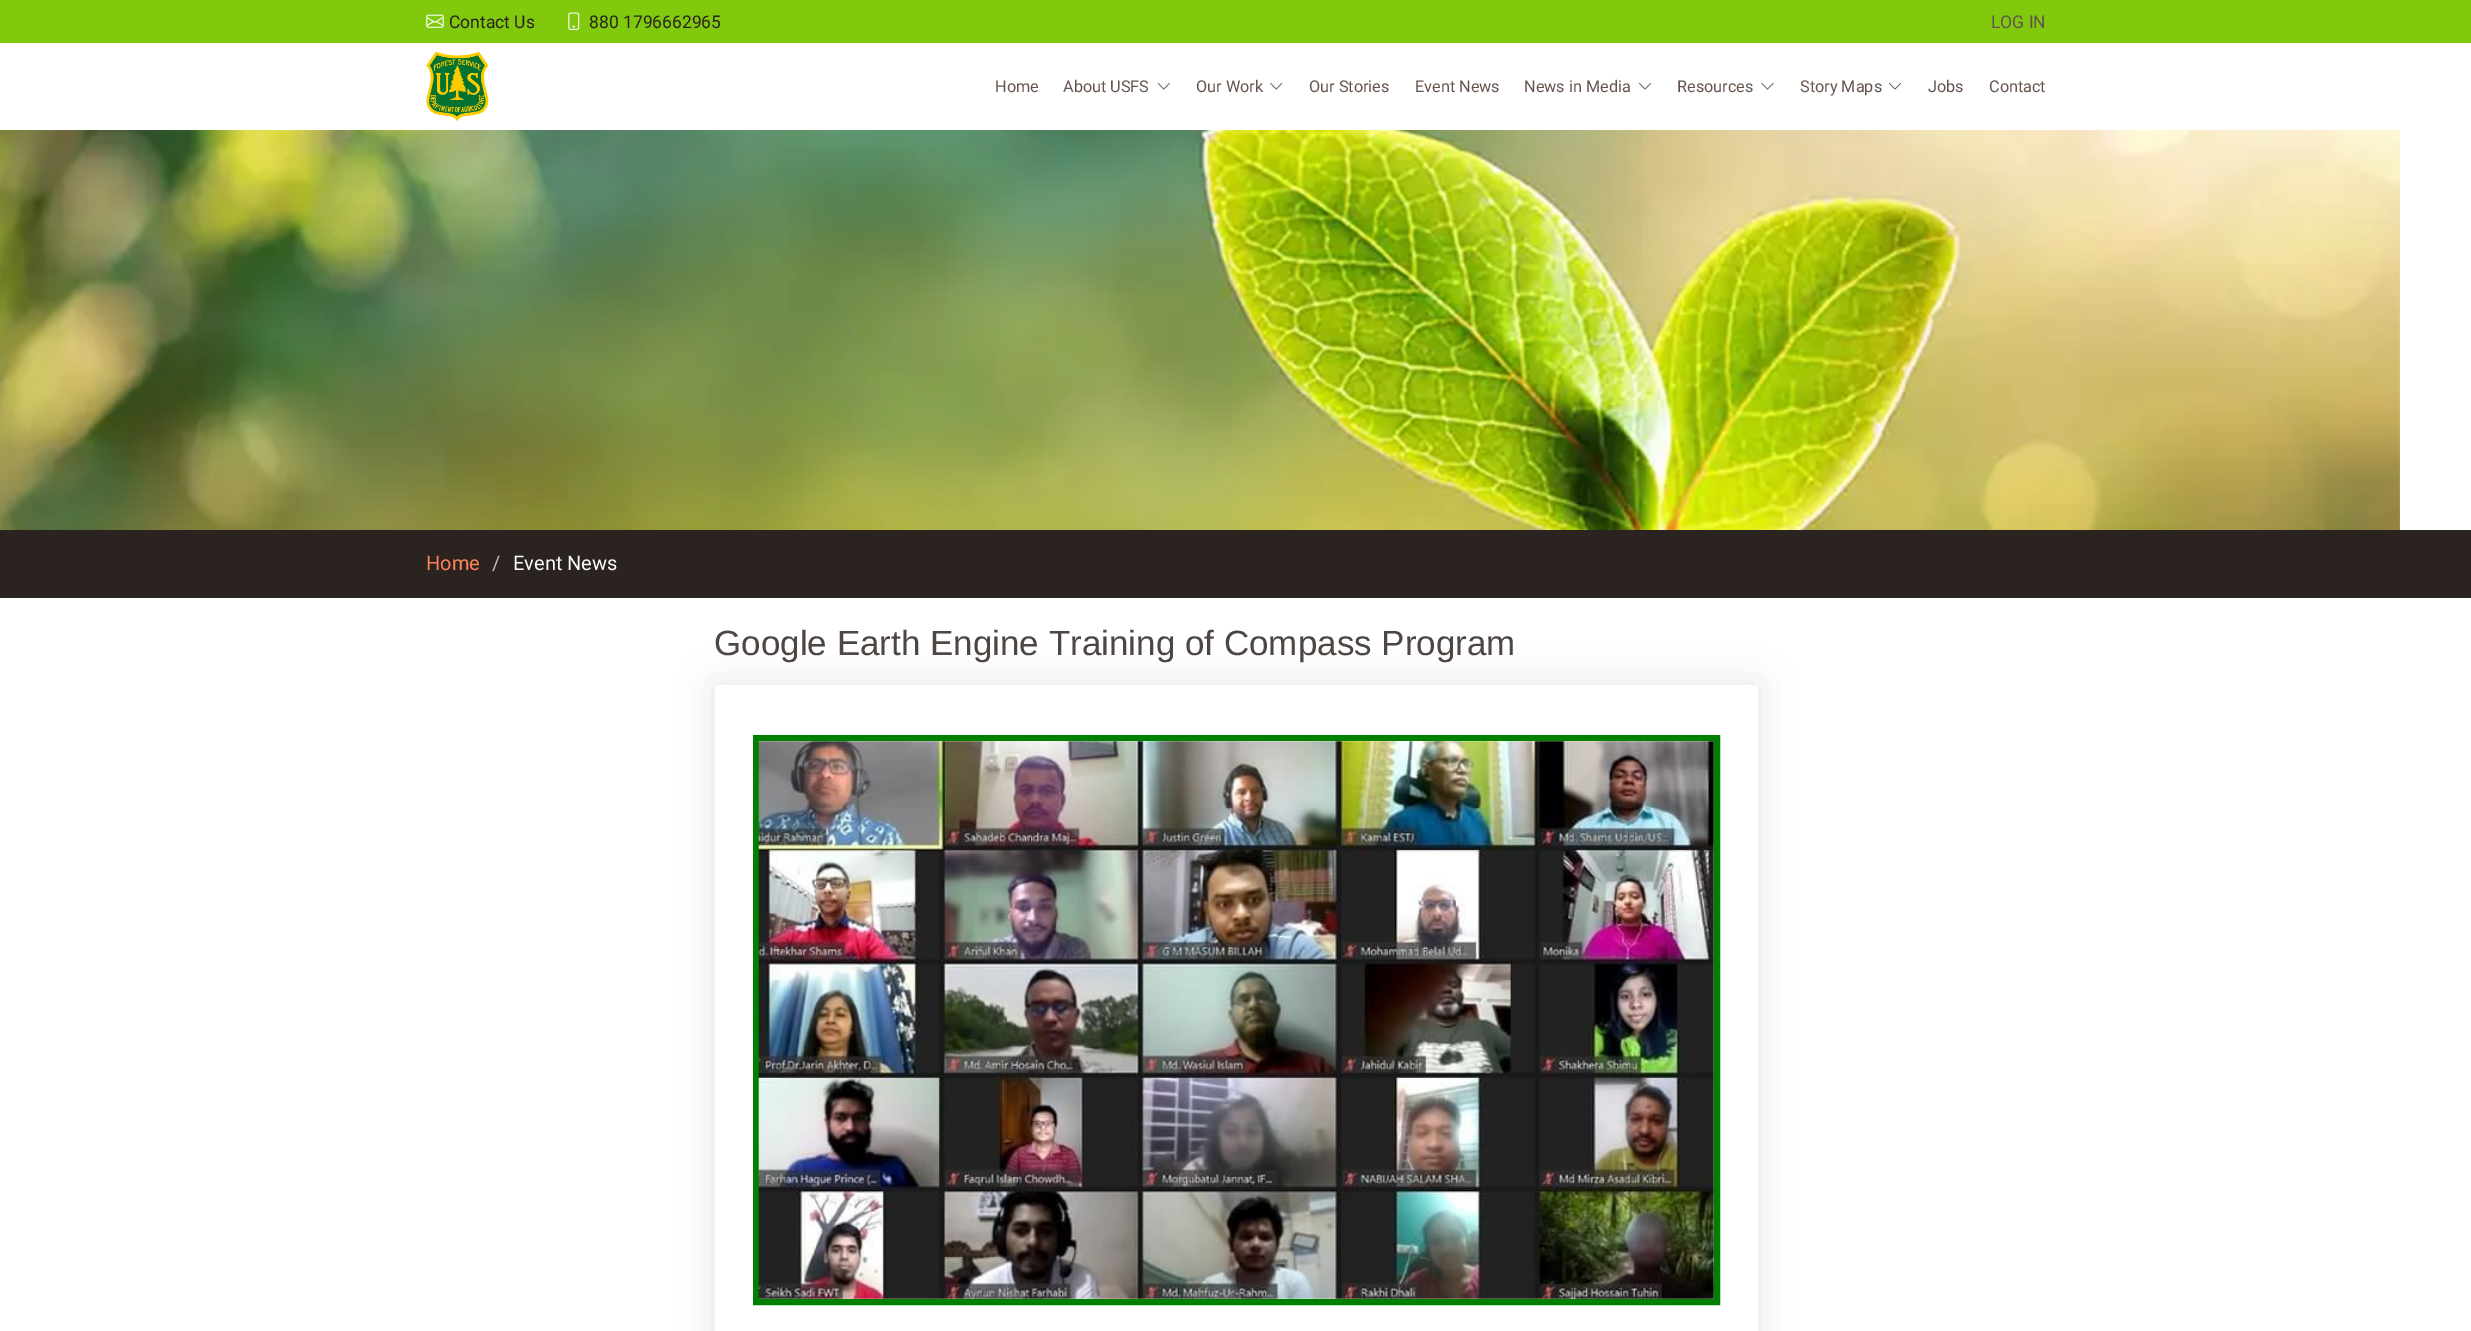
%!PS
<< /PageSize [2471 1331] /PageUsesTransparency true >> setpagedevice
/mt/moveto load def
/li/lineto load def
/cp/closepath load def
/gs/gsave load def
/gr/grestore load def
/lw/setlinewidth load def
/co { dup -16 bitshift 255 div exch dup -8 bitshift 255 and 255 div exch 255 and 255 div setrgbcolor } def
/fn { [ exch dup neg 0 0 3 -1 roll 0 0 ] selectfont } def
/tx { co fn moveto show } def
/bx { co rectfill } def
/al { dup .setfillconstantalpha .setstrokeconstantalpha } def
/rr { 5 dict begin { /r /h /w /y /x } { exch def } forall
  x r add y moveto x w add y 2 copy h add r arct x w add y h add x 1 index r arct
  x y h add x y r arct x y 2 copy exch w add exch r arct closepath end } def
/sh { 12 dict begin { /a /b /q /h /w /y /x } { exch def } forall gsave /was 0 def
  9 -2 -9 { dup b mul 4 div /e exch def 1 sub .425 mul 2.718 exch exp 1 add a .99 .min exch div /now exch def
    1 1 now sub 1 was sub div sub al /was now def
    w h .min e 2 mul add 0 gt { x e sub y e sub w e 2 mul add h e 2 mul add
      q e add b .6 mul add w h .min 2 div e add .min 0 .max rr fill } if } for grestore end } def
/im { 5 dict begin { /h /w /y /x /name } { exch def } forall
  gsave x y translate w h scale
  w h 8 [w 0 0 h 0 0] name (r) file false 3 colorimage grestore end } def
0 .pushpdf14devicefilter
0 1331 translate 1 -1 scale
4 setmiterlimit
0 0 2471 1331 16#FFFFFF bx
0 0 2471 43 16#81C90D bx
(media/1.raw) 426 14 18 14 im
(media/2.raw) 568 12 12 18 im
(media/3.raw) 426 51 63 71 im
(media/4.raw) 1157 83 13 7 im
(media/5.raw) 1270 83 13 7 im
(media/6.raw) 1638 83 14 7 im
(media/7.raw) 1761 83 13 7 im
(media/6.raw) 1888 83 14 7 im
(media/8.raw) 0 130 2400 400 im
0 530 2471 68 16#2B2320 bx
gs
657 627 mt 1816 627 li 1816 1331 li 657 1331 li cp 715 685 mt 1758 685 li 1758 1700 li 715 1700 li cp eoclip newpath
16#000000 co
715 685 1043 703 0 19 .1 sh
gr
16#008000 co
6 lw
756 738 961 564 rectstroke
(media/9.raw) 758 741 956 558 im
(Contact Us) 449 28 /Roboto-Regular 17.5 16#2B2320 tx
(880 1796662965) 589 28 /Roboto-Regular 17.5 16#2B2320 tx
(LOG IN) 1991 28 /Roboto-Regular 17.5 16#65534C tx
(Home) 995 92 /Roboto-Regular 16.25 16#65534C tx
(About USFS) 1063 92 /Roboto-Regular 16.25 16#65534C tx
(Our Work) 1196 92 /Roboto-Regular 16.25 16#65534C tx
(Our Stories) 1309 92 /Roboto-Regular 16.25 16#65534C tx
(Event News) 1415 92 /Roboto-Regular 16.25 16#65534C tx
(News in Media) 1524 92 /Roboto-Regular 16.25 16#65534C tx
(Resources) 1677 92 /Roboto-Regular 16.25 16#65534C tx
(Story Maps) 1800 92 /Roboto-Regular 16.25 16#65534C tx
(Jobs) 1928 92 /Roboto-Regular 16.25 16#65534C tx
(Contact) 1989 92 /Roboto-Regular 16.25 16#65534C tx
(Home) 426 570 /Roboto-Regular 20 16#FE825A tx
(/) 492 570 /Roboto-Regular 20 16#C8BAB5 tx
(Event News) 513 570 /Roboto-Regular 20 16#FFFFFF tx
(Google Earth Engine Training of Compass Program) 714 655 /LiberationSans-Regular 35 16#4D4643 tx
.poppdf14devicefilter showpage
